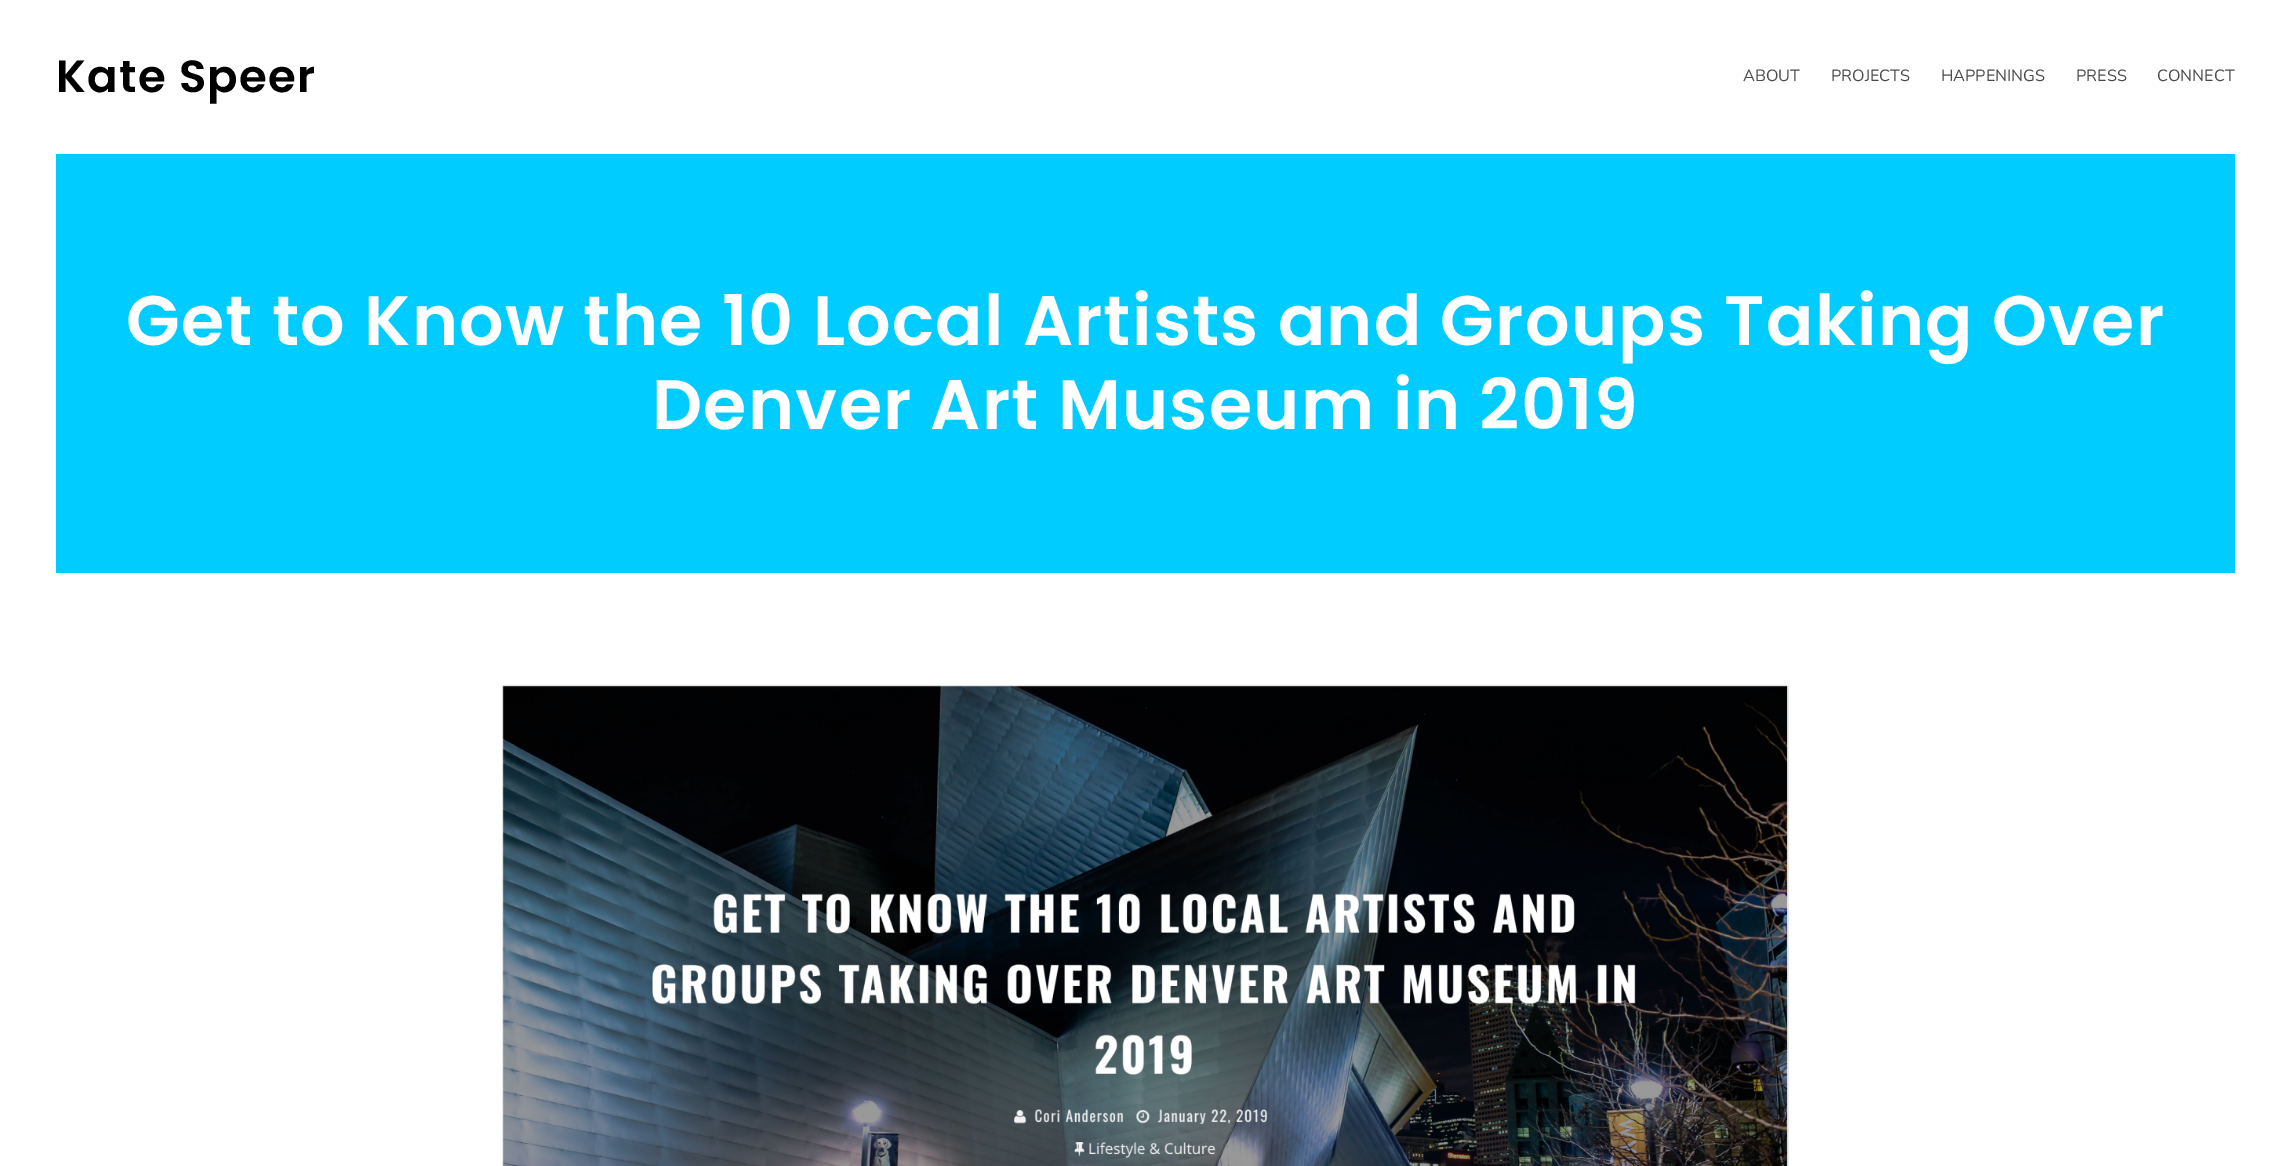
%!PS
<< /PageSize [2291 1166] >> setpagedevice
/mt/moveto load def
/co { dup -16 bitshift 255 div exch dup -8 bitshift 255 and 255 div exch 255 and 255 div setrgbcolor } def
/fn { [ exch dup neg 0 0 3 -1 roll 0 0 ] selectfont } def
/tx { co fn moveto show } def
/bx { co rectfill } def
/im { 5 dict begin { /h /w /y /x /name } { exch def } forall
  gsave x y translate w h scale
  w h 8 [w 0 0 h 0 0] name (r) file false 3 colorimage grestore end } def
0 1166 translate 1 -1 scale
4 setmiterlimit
0 0 2291 1166 16#FFFFFF bx
56 154 2179 419 16#00CCFF bx
(media/1.raw) 502 685 1287 481 im
/Poppins-SemiBold 45 fn
16#000000 co
56 92 mt 1.25 0 (Kate Speer) ashow
(ABOUT) 1743 81 /Nunito-Regular 16.25 16#4A4A4A tx
(PROJECTS) 1831 81 /Nunito-Regular 16.25 16#4A4A4A tx
(HAPPENINGS) 1941 81 /Nunito-Regular 16.25 16#4A4A4A tx
(PRESS) 2076 81 /Nunito-Regular 16.25 16#4A4A4A tx
(CONNECT) 2157 81 /Nunito-Regular 16.25 16#4A4A4A tx
/Poppins-SemiBold 70 fn
16#FFFFFF co
126 345 mt 1.25 0 (Get to Know the 10 Local Artists and Groups Taking Over) ashow
652 429 mt 1.25 0 (Denver Art Museum in 2019) ashow
showpage
